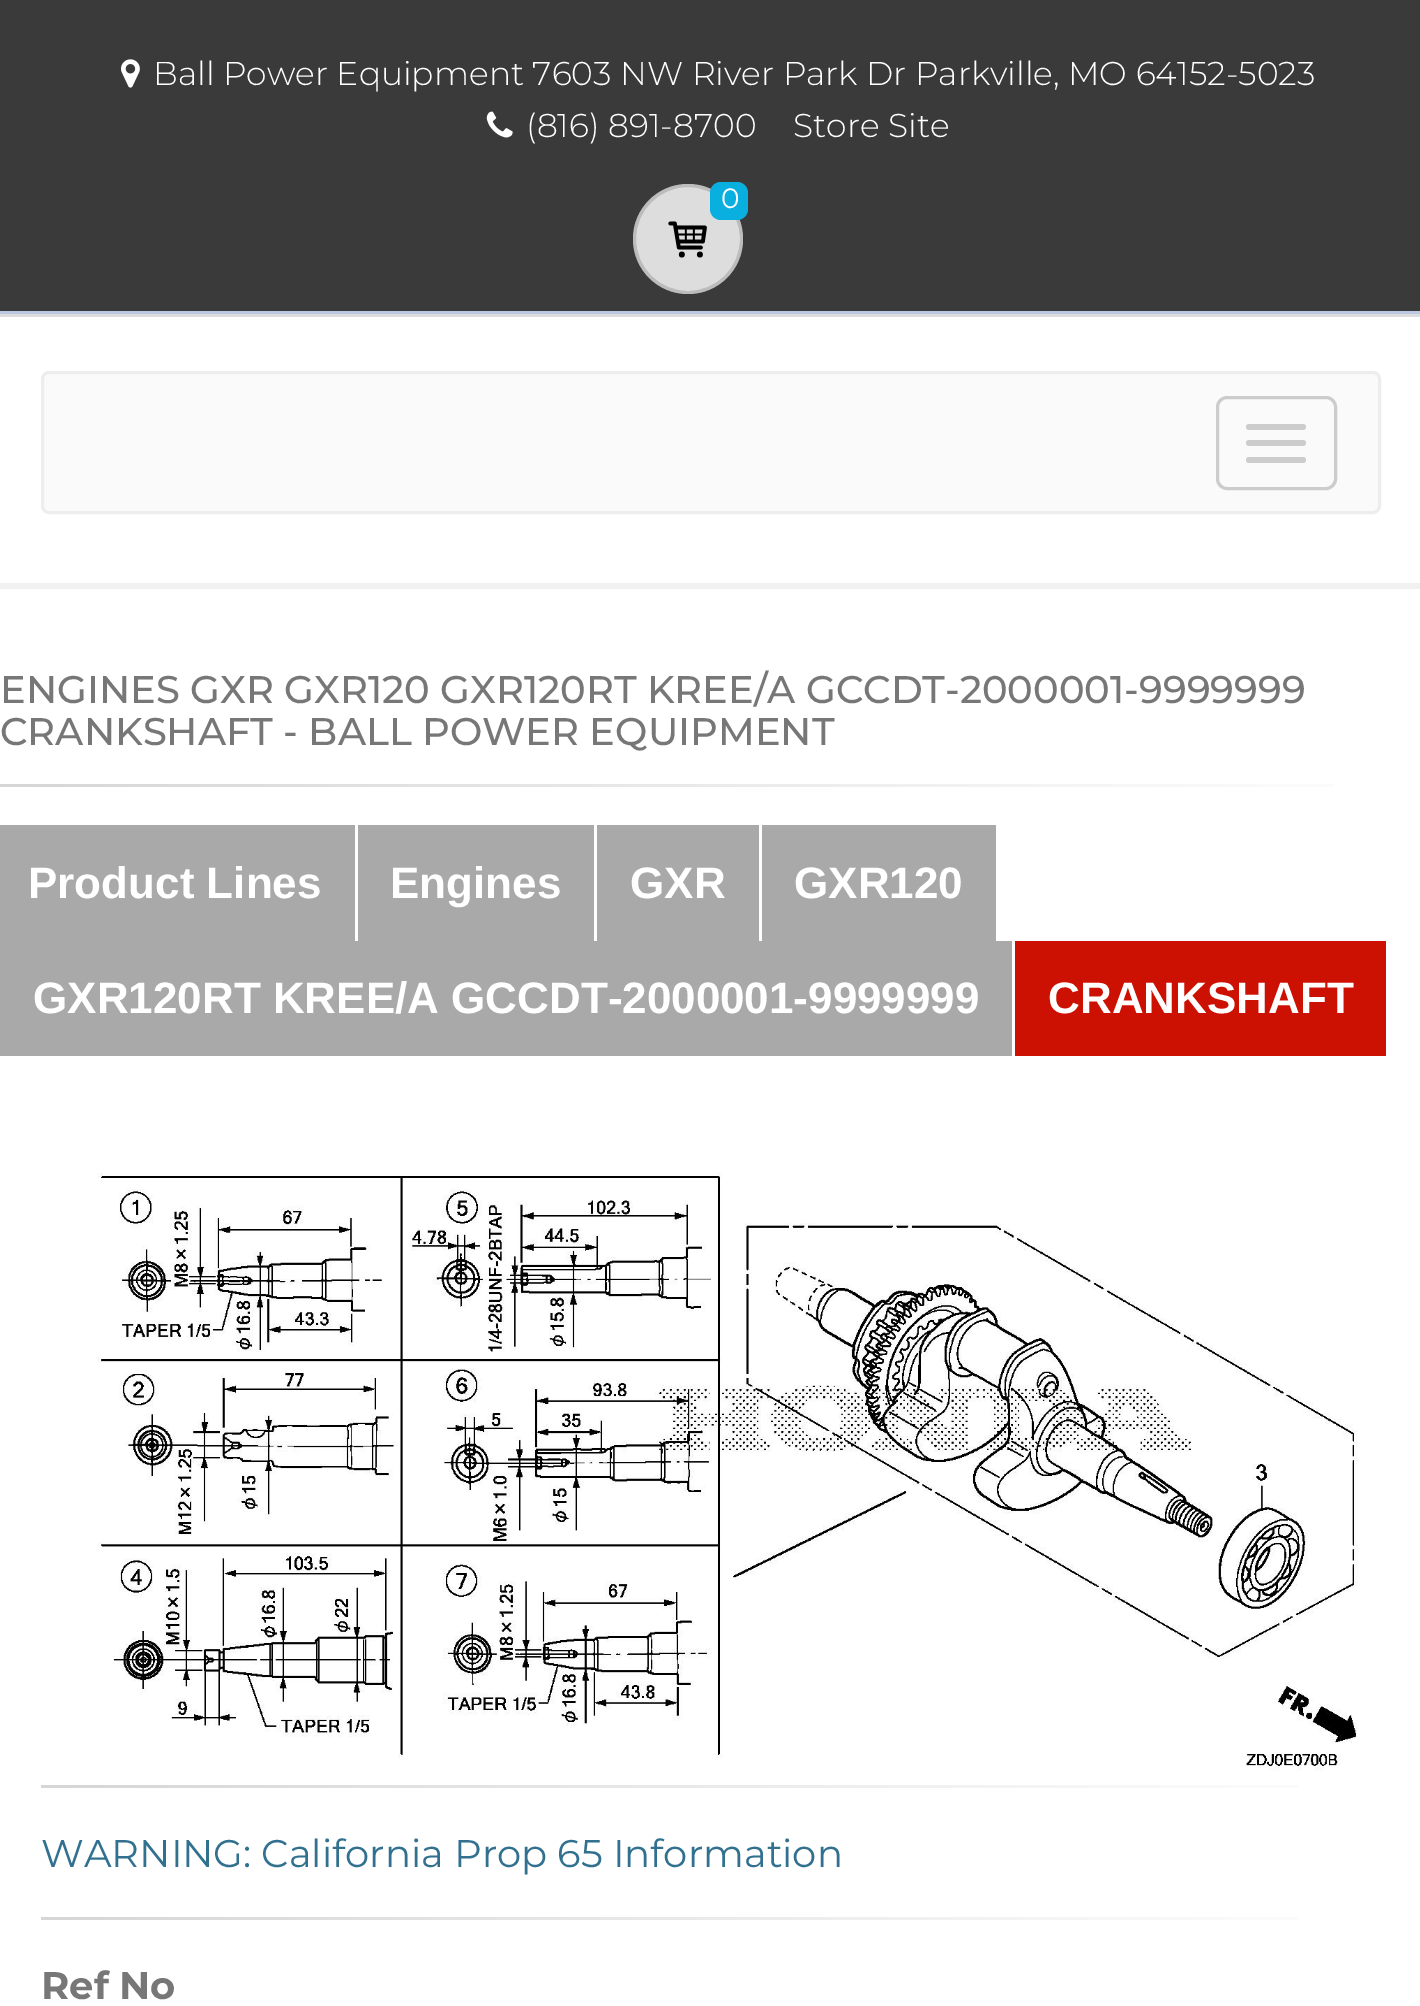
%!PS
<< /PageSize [1420 2006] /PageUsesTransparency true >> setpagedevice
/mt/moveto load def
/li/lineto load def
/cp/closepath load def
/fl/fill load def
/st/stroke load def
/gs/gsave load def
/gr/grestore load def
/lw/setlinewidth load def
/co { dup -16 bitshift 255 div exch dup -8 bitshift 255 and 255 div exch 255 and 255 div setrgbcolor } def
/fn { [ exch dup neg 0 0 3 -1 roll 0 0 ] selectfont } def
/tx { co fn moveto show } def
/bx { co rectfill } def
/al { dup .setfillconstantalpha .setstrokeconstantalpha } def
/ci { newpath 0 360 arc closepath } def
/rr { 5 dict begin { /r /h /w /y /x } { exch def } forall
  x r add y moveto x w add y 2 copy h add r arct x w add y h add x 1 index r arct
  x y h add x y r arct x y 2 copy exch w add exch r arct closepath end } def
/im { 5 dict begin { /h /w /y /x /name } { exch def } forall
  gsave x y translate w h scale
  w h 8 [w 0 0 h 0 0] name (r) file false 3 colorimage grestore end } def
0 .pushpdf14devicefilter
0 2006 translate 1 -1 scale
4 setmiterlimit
0 0 1420 2006 16#FFFFFF bx
0 0 1420 311 16#3A3A3A bx
0 311 1420 3 16#BBC9E3 bx
(media/1.raw) 121 59 19 29 im
(media/2.raw) 486 111 27 27 im
16#DDDDDD co
688 239 55 ci fl
0.15 al
16#000000 co
3 lw
688 239 53.5 ci st
1 al
16#09AFDF co
710 182 38 38 11 rr fl
(media/3.raw) 668 221 39 37 im
0 314 1420 3 16#DDDDDD bx
0 583 1420 6 16#F1F1F1 bx
16#FAFAFA co
42.5 372.5 1337 140 6.5 rr gs fl gr
16#EDEDED co
st
16#CCCCCC co
1217.5 397.5 118 91 9.5 rr st
1246 424 60 6 3 rr fl
1246 440 60 6 3 rr fl
1246 457 60 6 3 rr fl
gs 0 784 mt 1335 784 li 1335 787 li 0 787 li cp clip newpath
<< /ShadingType 2 /ColorSpace /DeviceRGB /Coords [0 785 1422 785] /Extend [true true] /Function << /FunctionType 2 /Domain [0 1] /C0 [.839 .839 .839] /C1 [1 1 1] /N 1 >> >> shfill gr
0 825 355 116 16#A9A9A9 bx
358 825 236 116 16#A9A9A9 bx
597 825 162 116 16#A9A9A9 bx
762 825 234 116 16#A9A9A9 bx
0 941 1012 115 16#A9A9A9 bx
1015 941 371 115 16#CC1001 bx
(media/4.raw) 97 1172 1261 599 im
gs 41 1785 mt 1299 1785 li 1299 1788 li 41 1788 li cp clip newpath
<< /ShadingType 2 /ColorSpace /DeviceRGB /Coords [41 1786 1381 1786] /Extend [true true] /Function << /FunctionType 2 /Domain [0 1] /C0 [.839 .839 .839] /C1 [1 1 1] /N 1 >> >> shfill gr
gs 41 1917 mt 1299 1917 li 1299 1920 li 41 1920 li cp clip newpath
<< /ShadingType 2 /ColorSpace /DeviceRGB /Coords [41 1918 1381 1918] /Extend [true true] /Function << /FunctionType 2 /Domain [0 1] /C0 [.839 .839 .839] /C1 [1 1 1] /N 1 >> >> shfill gr
(Ball Power Equipment 7603 NW River Park Dr Parkville, MO 64152-5023) 153 85 /Montserrat-Light 33 16#FFFFFF tx
(\(816\) 891-8700) 526 137 /Montserrat-Light 33 16#FFFFFF tx
(Store Site) 793 137 /Montserrat-Light 33 16#FFFFFF tx
(0) 721 208 /Montserrat-Regular 28 16#FFFFFF tx
(ENGINES GXR GXR120 GXR120RT KREE/A GCCDT-2000001-9999999) 0 703 /Montserrat-Medium 38.5 16#777777 tx
(CRANKSHAFT - BALL POWER EQUIPMENT) 0 745 /Montserrat-Medium 38.5 16#777777 tx
(Product Lines) 28 898 /LiberationSans-Bold 44 16#FFFFFF tx
(Engines) 390 898 /LiberationSans-Bold 44 16#FFFFFF tx
(GXR) 630 898 /LiberationSans-Bold 44 16#FFFFFF tx
(GXR120) 794 898 /LiberationSans-Bold 44 16#FFFFFF tx
(GXR120RT KREE/A GCCDT-2000001-9999999) 33 1013 /LiberationSans-Bold 44 16#FFFFFF tx
(CRANKSHAFT) 1048 1013 /LiberationSans-Bold 44 16#FFFFFF tx
(WARNING: California Prop 65 Information) 41 1867 /Montserrat-Regular 38.5 16#31708F tx
(Ref No) 41 1999 /Montserrat-Bold 38.5 16#777777 tx
.poppdf14devicefilter showpage
